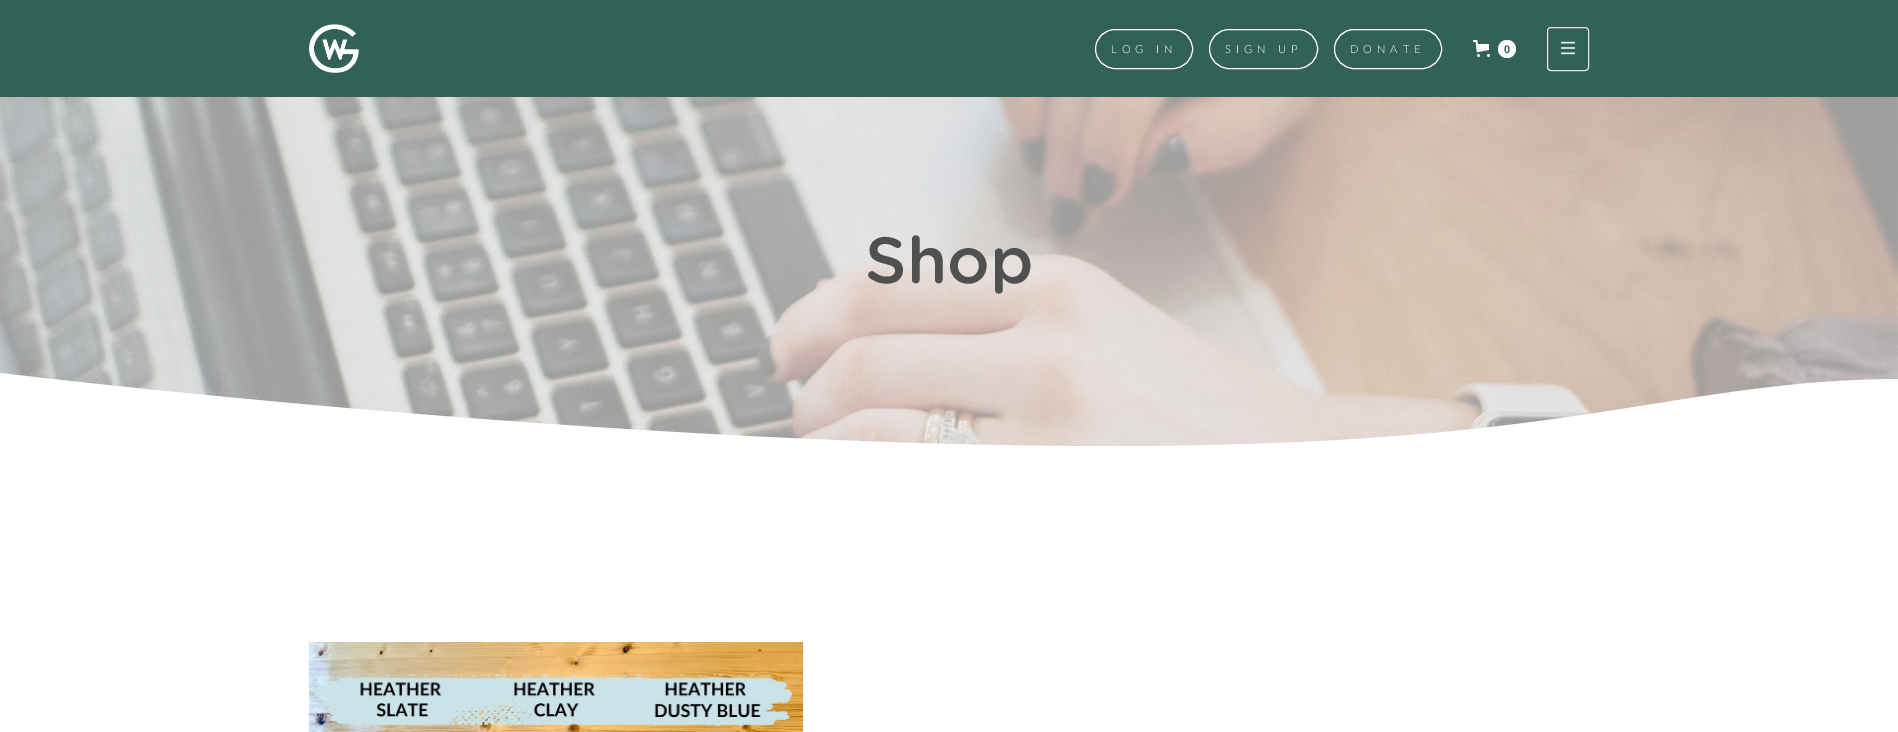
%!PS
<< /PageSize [1898 732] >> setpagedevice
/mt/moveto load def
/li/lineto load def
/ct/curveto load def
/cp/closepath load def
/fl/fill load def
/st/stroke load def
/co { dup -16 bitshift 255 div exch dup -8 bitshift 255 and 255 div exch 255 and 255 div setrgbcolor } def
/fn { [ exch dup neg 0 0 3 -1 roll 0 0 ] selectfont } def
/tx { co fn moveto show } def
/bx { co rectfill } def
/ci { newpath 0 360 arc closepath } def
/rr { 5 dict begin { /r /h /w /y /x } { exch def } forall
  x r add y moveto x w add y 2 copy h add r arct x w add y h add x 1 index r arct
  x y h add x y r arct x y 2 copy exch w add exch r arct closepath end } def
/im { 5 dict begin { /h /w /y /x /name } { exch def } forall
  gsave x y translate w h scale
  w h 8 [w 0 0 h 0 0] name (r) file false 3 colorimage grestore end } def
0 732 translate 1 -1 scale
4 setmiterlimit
0 0 1898 732 16#FFFFFF bx
0 0 1898 97 16#326156 bx
(media/1.raw) 309 24 50 49 im
16#FFFFFF co
1095.5 29.5 97 39 19.5 rr st
1209.5 29.5 108 39 19.5 rr st
1334.5 29.5 107 39 19.5 rr st
(media/2.raw) 1473 40 17 17 im
1507 49 9 ci fl
16#E6E6E6 co
1547.5 27.5 41 43 3.5 rr st
(media/3.raw) 1561 41 14 14 im
(media/4.raw) 0 97 1898 350 im
16#FFFFFF co
0 373 mt 0 373 566 442 1069 446 ct 1572 450 1663 381 1898 379 ct 1898 512 li 0 512 li cp fl
(media/5.raw) 309 642 494 90 im
/Lato-Light 11 fn
1111 53 mt 5 0 (LOG IN) ashow
1225 53 mt 5 0 (SIGN UP) ashow
1350 53 mt 5 0 (DONATE) ashow
(0) 1504 53 /LiberationSans-Bold 11 16#336156 tx
(Shop) 865 283 /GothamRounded-Medium 65 16#505050 tx
showpage
